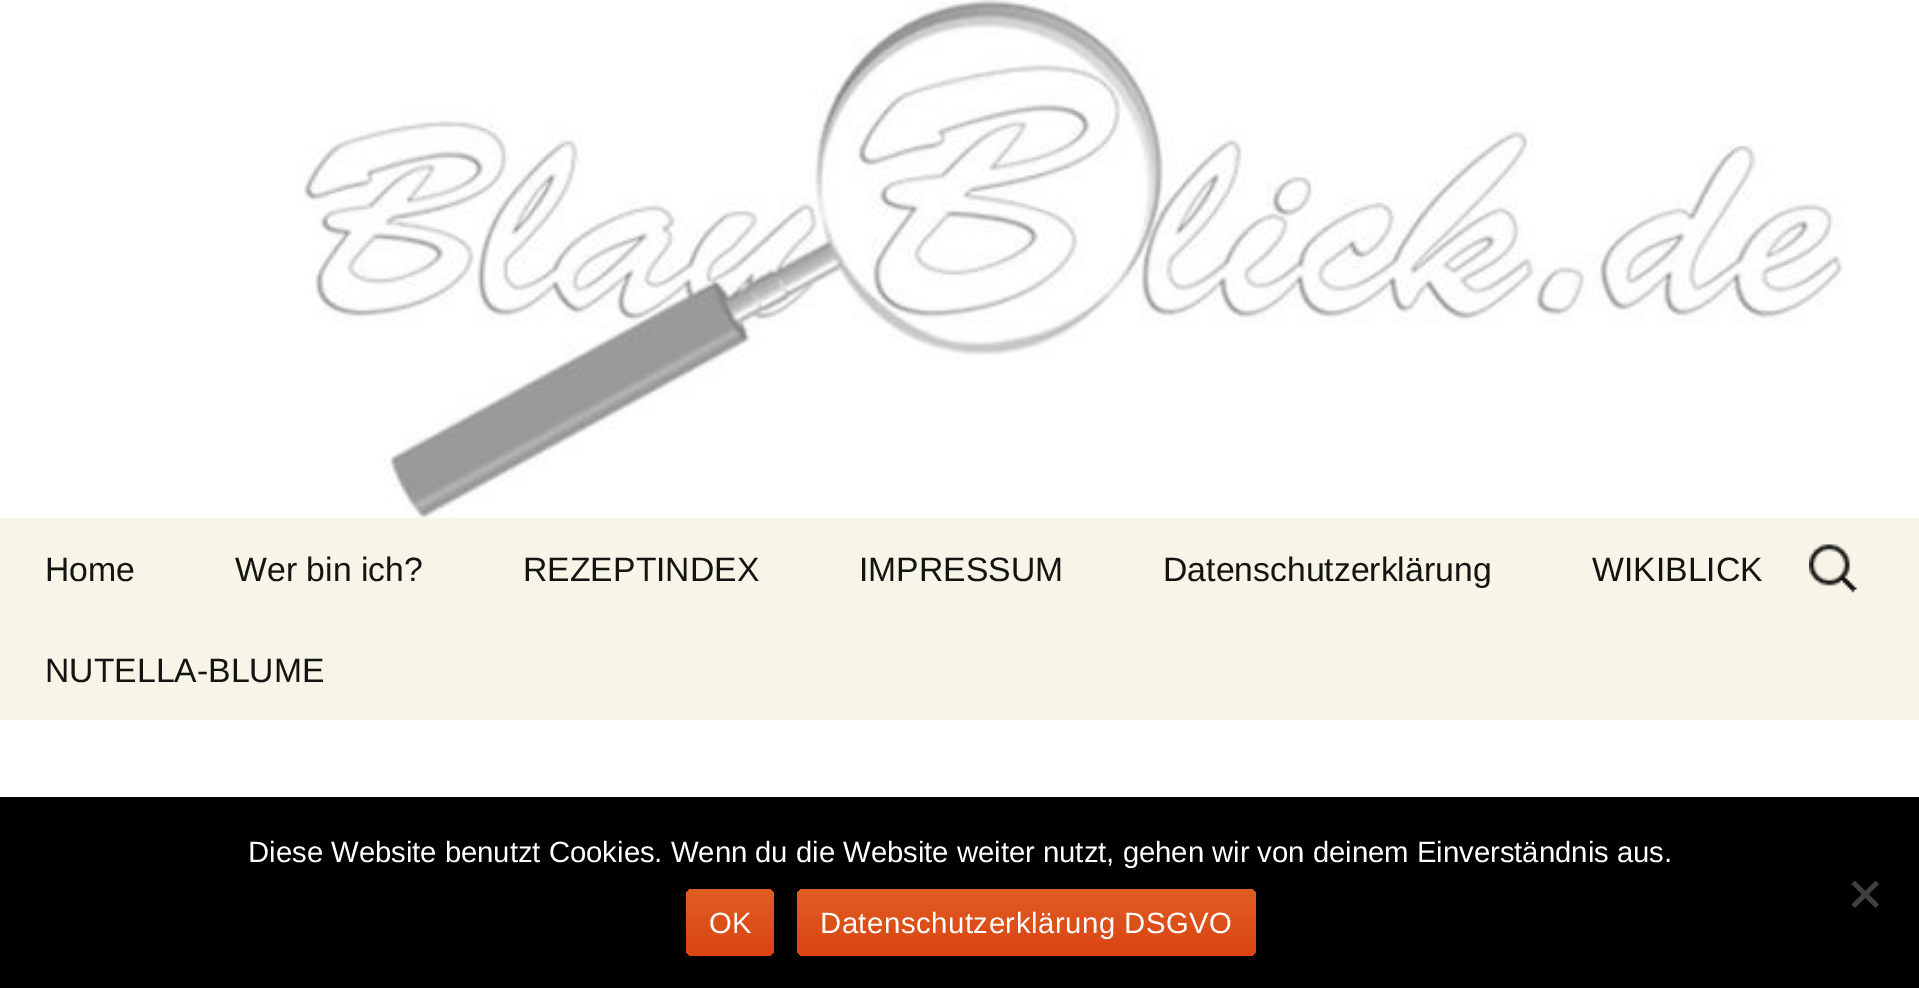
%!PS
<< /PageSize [1919 988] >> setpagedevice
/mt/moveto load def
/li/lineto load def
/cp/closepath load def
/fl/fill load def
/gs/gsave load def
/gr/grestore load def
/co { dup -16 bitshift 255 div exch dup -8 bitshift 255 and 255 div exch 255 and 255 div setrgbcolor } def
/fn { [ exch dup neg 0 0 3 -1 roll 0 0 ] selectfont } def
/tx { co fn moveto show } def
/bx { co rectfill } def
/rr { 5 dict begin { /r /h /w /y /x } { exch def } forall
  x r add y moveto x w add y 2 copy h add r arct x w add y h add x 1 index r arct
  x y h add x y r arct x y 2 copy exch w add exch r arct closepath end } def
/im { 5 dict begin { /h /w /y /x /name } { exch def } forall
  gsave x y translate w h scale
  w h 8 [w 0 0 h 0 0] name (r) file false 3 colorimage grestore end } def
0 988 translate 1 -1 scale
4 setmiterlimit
0 0 1919 988 16#FFFFFF bx
(media/1.raw) 296 0 1547 518 im
0 518 1919 202 16#F7F5E7 bx
(media/2.raw) 1809 544 48 49 im
0 797 1919 191 16#000000 bx
16#404040 co
1875.5 881 mt 1879 884 li 1855 908 li 1851.5 904.5 li cp fl
1851.5 884 mt 1855 881 li 1879 904.5 li 1875.5 908 li cp fl
gs 686 889 88 67 7 rr clip newpath
<< /ShadingType 2 /ColorSpace /DeviceRGB /Coords [730 889 730 956] /Extend [true true] /Function << /FunctionType 2 /Domain [0 1] /C0 [.878 .365 .133] /C1 [.851 .267 .071] /N 1 >> >> shfill gr
gs 797 889 459 67 7 rr clip newpath
<< /ShadingType 2 /ColorSpace /DeviceRGB /Coords [1026 889 1026 956] /Extend [true true] /Function << /FunctionType 2 /Domain [0 1] /C0 [.878 .365 .133] /C1 [.851 .267 .071] /N 1 >> >> shfill gr
(Home) 45 581 /LiberationSans-Regular 33.75 16#141412 tx
(Wer bin ich?) 235 581 /LiberationSans-Regular 33.75 16#141412 tx
(REZEPTINDEX) 523 581 /LiberationSans-Regular 33.75 16#141412 tx
(IMPRESSUM) 859 581 /LiberationSans-Regular 33.75 16#141412 tx
(Datenschutzerklärung) 1163 581 /LiberationSans-Regular 33.75 16#141412 tx
(WIKIBLICK) 1592 581 /LiberationSans-Regular 33.75 16#141412 tx
(NUTELLA-BLUME) 45 682 /LiberationSans-Regular 33.75 16#141412 tx
(Diese Website benutzt Cookies. Wenn du die Website weiter nutzt, gehen wir von deinem Einverständnis aus.) 248 862 /LiberationSans-Regular 29.25 16#FFFFFF tx
709 933 mt .55 0 (OK) ashow
820 933 mt .55 0 (Datenschutzerklärung DSGVO) ashow
showpage
